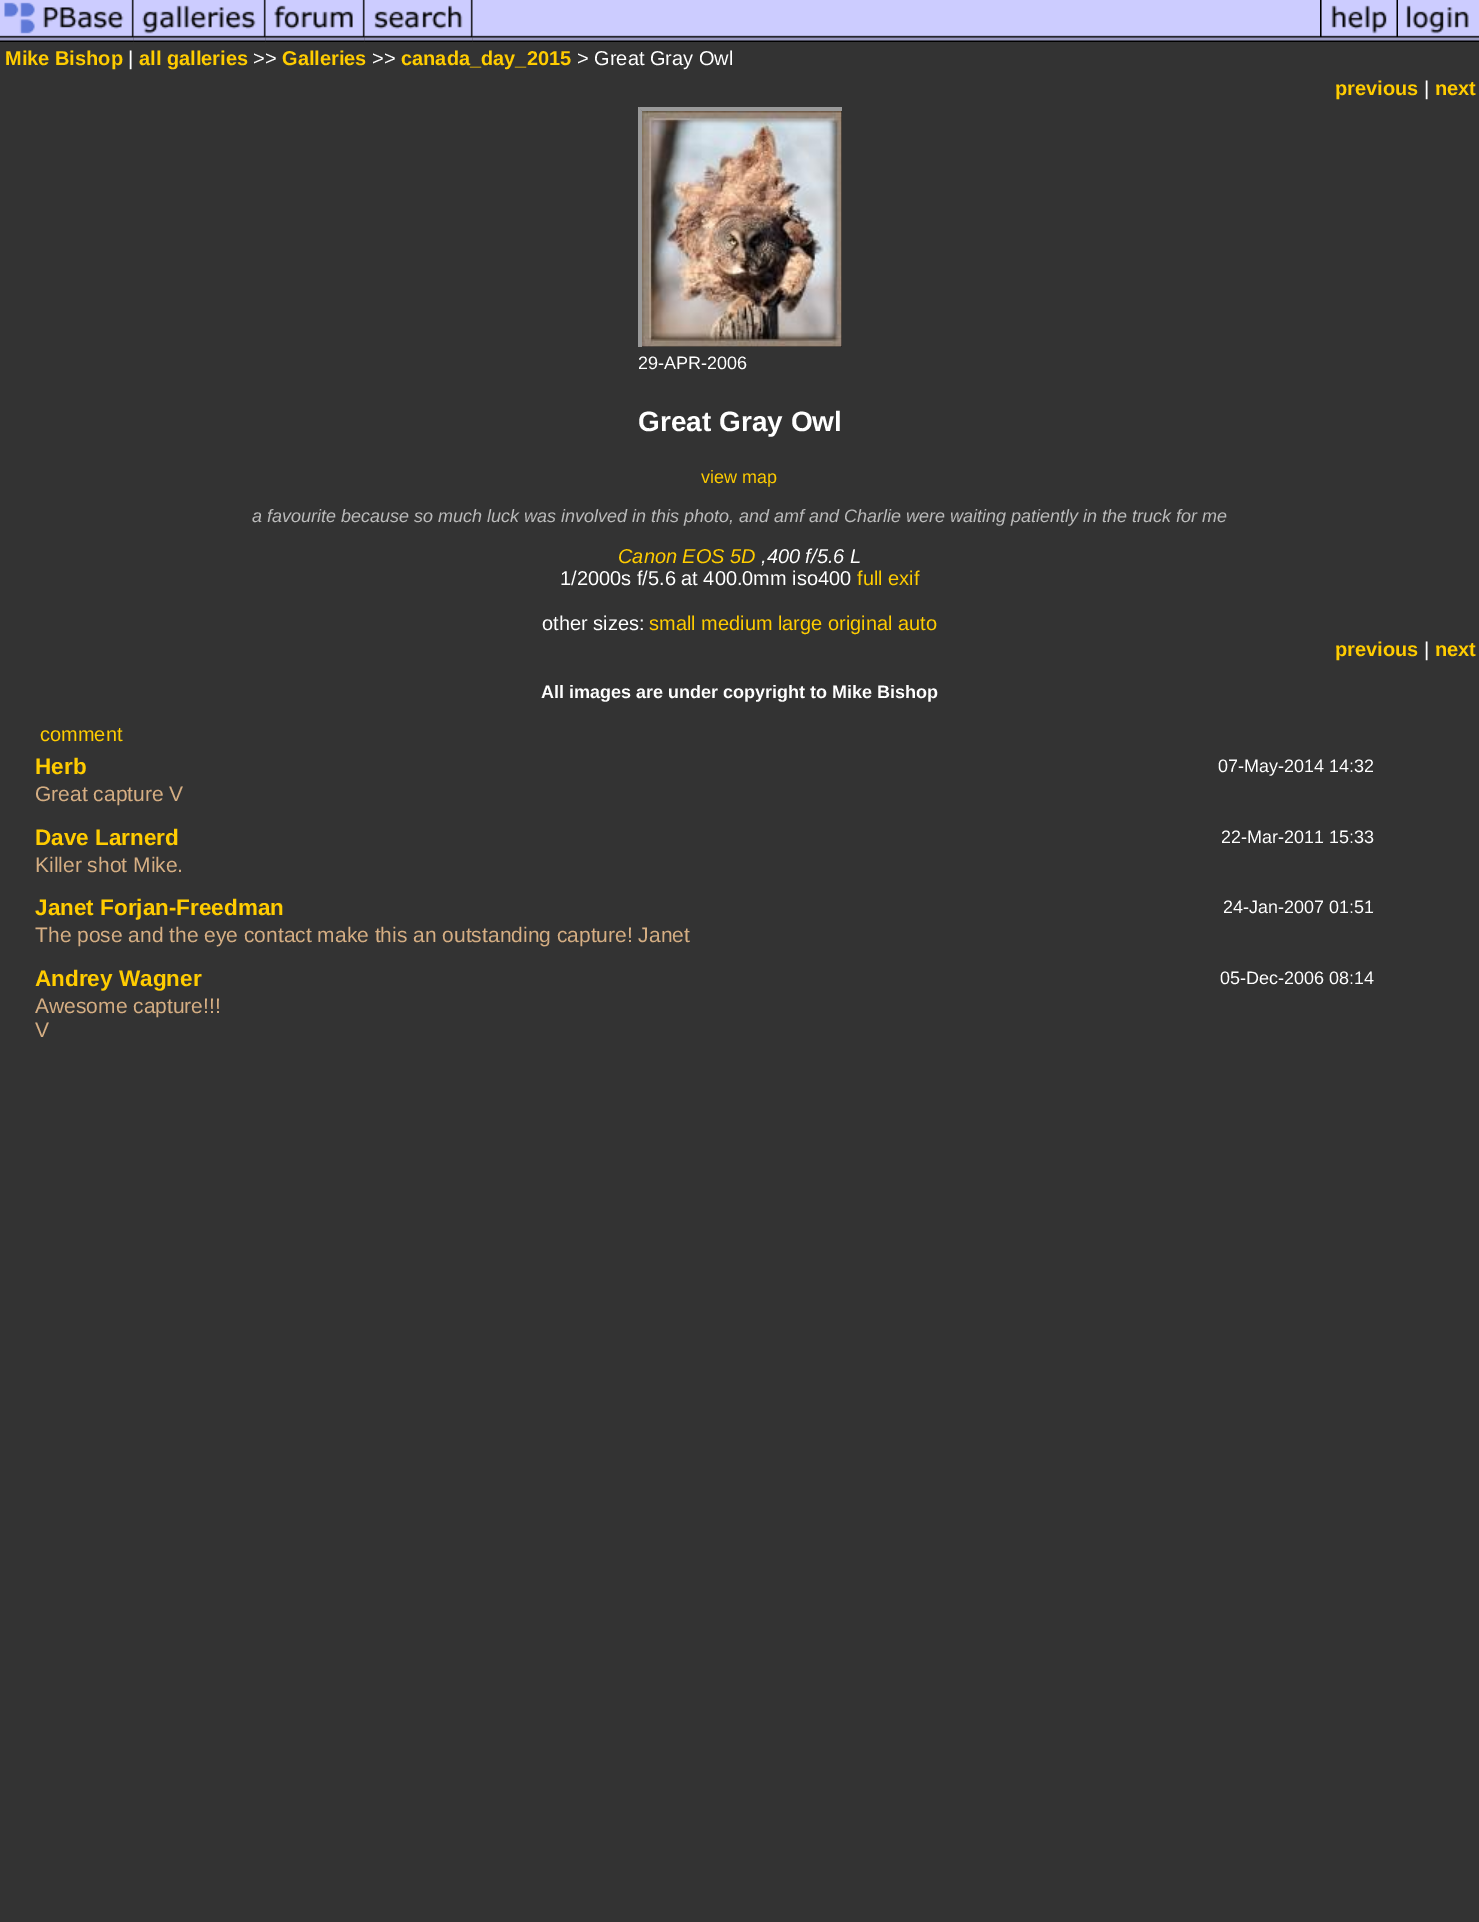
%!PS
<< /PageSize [1479 1922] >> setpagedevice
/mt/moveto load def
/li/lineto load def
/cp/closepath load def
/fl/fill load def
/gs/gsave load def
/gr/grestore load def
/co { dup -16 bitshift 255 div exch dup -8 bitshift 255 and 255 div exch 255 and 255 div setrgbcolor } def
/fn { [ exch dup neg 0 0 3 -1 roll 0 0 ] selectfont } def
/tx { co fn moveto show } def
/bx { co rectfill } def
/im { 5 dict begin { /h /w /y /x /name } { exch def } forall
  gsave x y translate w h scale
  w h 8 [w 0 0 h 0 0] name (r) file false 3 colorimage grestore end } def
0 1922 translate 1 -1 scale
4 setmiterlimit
0 0 1479 1922 16#333333 bx
(media/1.raw) 0 0 134 42 im
(media/2.raw) 133 0 133 42 im
(media/3.raw) 265 0 100 42 im
(media/4.raw) 364 0 109 42 im
(media/5.raw) 472 0 848 42 im
(media/6.raw) 1320 0 78 42 im
(media/7.raw) 1398 0 81 42 im
638 107 204 240 16#000000 bx
gs
638 107 204 240 rectclip
16#999999 co
638 106 mt 849 106 li 844 111 li 642 111 li cp fl
638 352 mt 638 106 li 642 111 li 642 348 li cp fl
gr
(media/8.raw) 642 111 200 236 im
(Mike Bishop) 5 65 /LiberationSans-Bold 20 16#FFCC00 tx
(|) 128 65 /LiberationSans-Regular 20 16#FFFFFF tx
(all galleries) 139 65 /LiberationSans-Bold 20 16#FFCC00 tx
(>>) 253 65 /LiberationSans-Regular 20 16#FFFFFF tx
(Galleries) 282 65 /LiberationSans-Bold 20 16#FFCC00 tx
(>>) 372 65 /LiberationSans-Regular 20 16#FFFFFF tx
(canada_day_2015) 401 65 /LiberationSans-Bold 20 16#FFCC00 tx
(> Great Gray Owl) 577 65 /LiberationSans-Regular 20 16#FFFFFF tx
(previous) 1335 95 /LiberationSans-Bold 20 16#FFCC00 tx
(|) 1424 95 /LiberationSans-Regular 20 16#FFFFFF tx
(next) 1435 95 /LiberationSans-Bold 20 16#FFCC00 tx
(29-APR-2006) 638 369 /LiberationSans-Regular 18 16#FFFFFF tx
(Great Gray Owl) 638 431 /LiberationSans-Bold 28 16#FFFFFF tx
(view map) 701 483 /LiberationSans-Regular 18 16#FFCC00 tx
(a favourite because so much luck was involved in this photo, and amf and Charlie were waiting patiently in the truck for me) 252 522 /LiberationSans-Italic 18 16#BBBBBB tx
(Canon EOS 5D) 618 563 /LiberationSans-Italic 20 16#FFCC00 tx
(,400 f/5.6 L) 761 563 /LiberationSans-Italic 20 16#FFFFFF tx
(1/2000s f/5.6 at 400.0mm iso400) 560 585 /LiberationSans-Regular 20 16#FFFFFF tx
(full exif) 857 585 /LiberationSans-Regular 20 16#FFCC00 tx
(other sizes:) 542 630 /LiberationSans-Regular 20 16#FFFFFF tx
(small medium large original auto) 649 630 /LiberationSans-Regular 20 16#FFCC00 tx
(previous) 1335 656 /LiberationSans-Bold 20 16#FFCC00 tx
(|) 1424 656 /LiberationSans-Regular 20 16#FFFFFF tx
(next) 1435 656 /LiberationSans-Bold 20 16#FFCC00 tx
(All images are under copyright to Mike Bishop) 541 698 /LiberationSans-Bold 18 16#FFFFFF tx
(comment) 40 741 /LiberationSans-Regular 20 16#FFCC00 tx
(Herb) 35 774 /LiberationSans-Bold 22.5 16#FFCC00 tx
(07-May-2014 14:32) 1218 772 /LiberationSans-Regular 18 16#FFFFFF tx
(Great capture V) 35 801 /LiberationSans-Regular 21 16#D5AE83 tx
(Dave Larnerd) 35 845 /LiberationSans-Bold 22.5 16#FFCC00 tx
(22-Mar-2011 15:33) 1221 843 /LiberationSans-Regular 18 16#FFFFFF tx
(Killer shot Mike.) 35 872 /LiberationSans-Regular 21 16#D5AE83 tx
(Janet Forjan-Freedman) 35 915 /LiberationSans-Bold 22.5 16#FFCC00 tx
(24-Jan-2007 01:51) 1223 913 /LiberationSans-Regular 18 16#FFFFFF tx
(The pose and the eye contact make this an outstanding capture! Janet) 35 942 /LiberationSans-Regular 21 16#D5AE83 tx
(Andrey Wagner) 35 986 /LiberationSans-Bold 22.5 16#FFCC00 tx
(05-Dec-2006 08:14) 1220 984 /LiberationSans-Regular 18 16#FFFFFF tx
(Awesome capture!!!) 35 1013 /LiberationSans-Regular 21 16#D5AE83 tx
(V) 35 1037 /LiberationSans-Regular 21 16#D5AE83 tx
showpage
